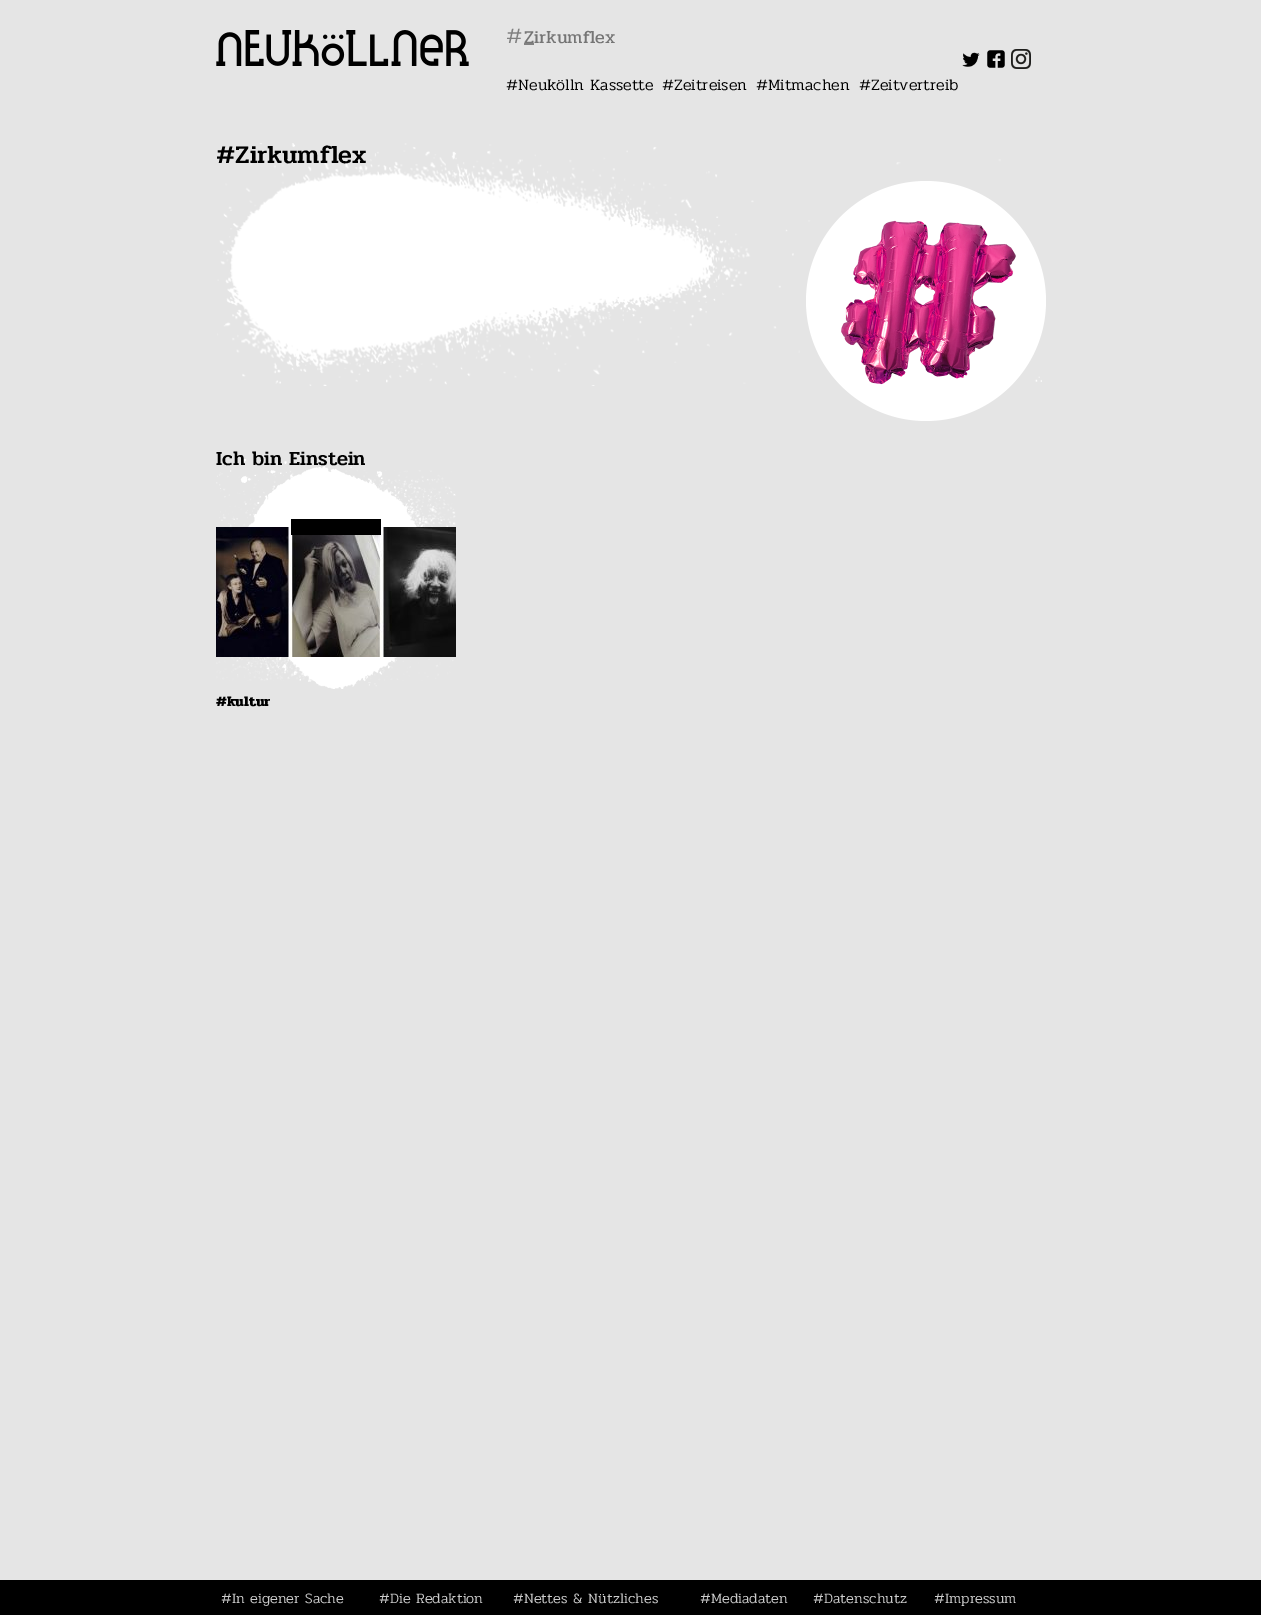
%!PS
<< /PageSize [1261 1615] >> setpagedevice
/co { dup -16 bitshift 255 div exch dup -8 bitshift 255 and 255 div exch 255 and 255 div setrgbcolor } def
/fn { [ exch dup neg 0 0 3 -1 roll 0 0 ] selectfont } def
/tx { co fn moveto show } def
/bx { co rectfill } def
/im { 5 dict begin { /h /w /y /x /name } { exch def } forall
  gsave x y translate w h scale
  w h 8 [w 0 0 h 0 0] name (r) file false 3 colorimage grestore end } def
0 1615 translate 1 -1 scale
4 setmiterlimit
0 0 1261 1615 16#E5E5E5 bx
(media/1.raw) 216 30 253 36 im
524 43 10 2 16#808080 bx
(media/2.raw) 962 52 18 15 im
(media/3.raw) 987 50 18 18 im
(media/4.raw) 1011 49 20 20 im
(media/5.raw) 217 143 825 243 im
(media/6.raw) 806 181 240 240 im
(media/7.raw) 216 459 240 230 im
(media/8.raw) 216 527 240 130 im
291 519 90 16 16#000000 bx
0 1580 1261 35 16#000000 bx
(#) 506 43 /Pridi-Light 22 16#808080 tx
(Zirkumflex) 524 43 /Pridi-Regular 18 16#757575 tx
(#Neukölln Kassette) 506 90 /Pridi-Light 16 16#000000 tx
(#Zeitreisen) 662 90 /Pridi-Light 16 16#000000 tx
(#Mitmachen) 756 90 /Pridi-Light 16 16#000000 tx
(#Zeitvertreib) 859 90 /Pridi-Light 16 16#000000 tx
(#Zirkumflex) 216 163 /Pridi-Medium 25.5 16#000000 tx
(Ich bin Einstein) 216 465 /Pridi-Medium 20.25 16#000000 tx
(#kultur) 216 706 /Pridi-Bold 14.4 16#000000 tx
(#In eigener Sache) 221 1603 /Pridi-Light 14.4 16#CCCCCC tx
(#Die Redaktion) 379 1603 /Pridi-Light 14.4 16#CCCCCC tx
(#Nettes & Nützliches) 513 1603 /Pridi-Light 14.4 16#CCCCCC tx
(#Mediadaten) 700 1603 /Pridi-Light 14.4 16#CCCCCC tx
(#Datenschutz) 813 1603 /Pridi-Light 14.4 16#CCCCCC tx
(#Impressum) 934 1603 /Pridi-Light 14.4 16#CCCCCC tx
showpage
